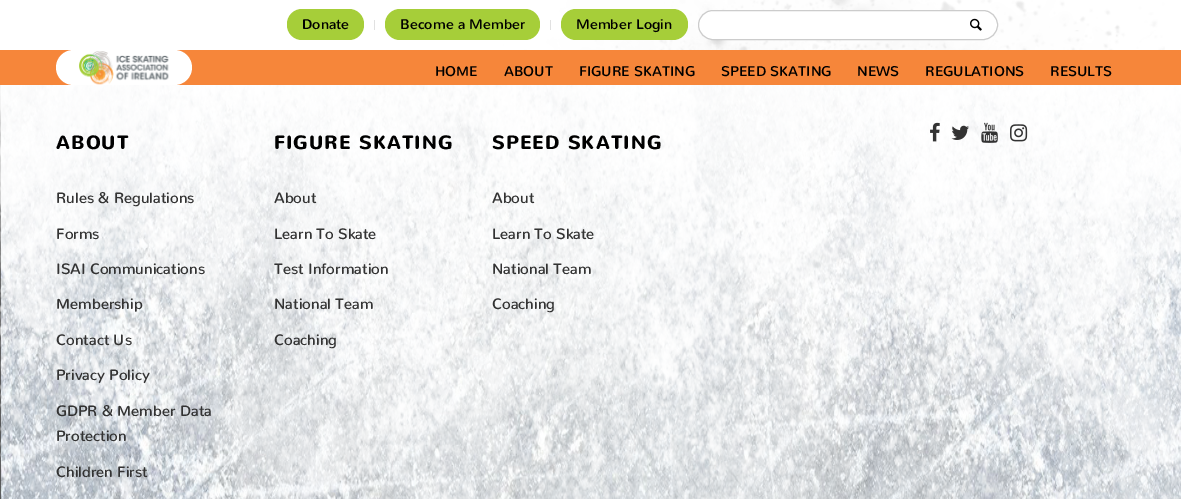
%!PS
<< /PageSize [1181 499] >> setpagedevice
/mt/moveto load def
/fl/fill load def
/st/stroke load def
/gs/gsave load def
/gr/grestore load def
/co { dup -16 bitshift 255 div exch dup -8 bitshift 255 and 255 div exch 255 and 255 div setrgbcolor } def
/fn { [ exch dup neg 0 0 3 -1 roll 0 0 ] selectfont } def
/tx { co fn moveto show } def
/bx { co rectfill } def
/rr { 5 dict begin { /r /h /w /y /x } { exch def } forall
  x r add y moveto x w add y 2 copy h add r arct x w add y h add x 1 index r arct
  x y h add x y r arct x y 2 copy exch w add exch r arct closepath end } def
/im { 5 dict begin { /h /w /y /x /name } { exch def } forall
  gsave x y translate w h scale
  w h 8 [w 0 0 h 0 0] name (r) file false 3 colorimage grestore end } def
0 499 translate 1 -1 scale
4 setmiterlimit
0 0 1181 499 16#FFFFFF bx
(media/1.raw) 56 0 1109 50 im
374 20 1 10 16#E1E1E1 bx
16#A6CE39 co
287 9 77 31 15 rr fl
550 20 1 10 16#E1E1E1 bx
16#A6CE39 co
385 9 155 31 15 rr fl
561 9 127 31 15 rr fl
16#FFFFFF co
698.5 10.5 299 29 14.5 rr gs fl gr
16#CCCCCC co
st
(media/2.raw) 970 18 12 13 im
0 50 1181 35 16#F6863A bx
16#FFFFFF co
56 50 136 35 17.5 rr fl
(media/3.raw) 79 51 90 34 im
(media/4.raw) 0 85 1181 414 im
(media/5.raw) 930 122 10 20 im
(media/6.raw) 951 125 18 15 im
(media/7.raw) 981 122 17 21 im
(media/8.raw) 1010 124 18 18 im
(Donate) 302 29 /Nunito-Regular 14 16#000000 tx
(Become a Member) 400 29 /Nunito-Regular 14 16#000000 tx
(Member Login) 576 29 /Nunito-Regular 14 16#000000 tx
(HOME) 435 76 /Nunito-SemiBold 14 16#000000 tx
(ABOUT) 504 76 /Nunito-SemiBold 14 16#000000 tx
(FIGURE SKATING) 579 76 /Nunito-SemiBold 14 16#000000 tx
(SPEED SKATING) 721 76 /Nunito-SemiBold 14 16#000000 tx
(NEWS) 857 76 /Nunito-SemiBold 14 16#000000 tx
(REGULATIONS) 925 76 /Nunito-SemiBold 14 16#000000 tx
(RESULTS) 1050 76 /Nunito-SemiBold 14 16#000000 tx
/Nunito-Bold 19 fn
56 149 mt 1 0 (ABOUT) ashow
(Rules & Regulations) 56 203 /Nunito-SemiBold 15 16#333333 tx
(Forms) 56 239 /Nunito-SemiBold 15 16#333333 tx
(ISAI Communications) 56 274 /Nunito-SemiBold 15 16#333333 tx
(Membership) 56 309 /Nunito-SemiBold 15 16#333333 tx
(Contact Us) 56 345 /Nunito-SemiBold 15 16#333333 tx
(Privacy Policy) 56 380 /Nunito-SemiBold 15 16#333333 tx
(GDPR & Member Data) 56 416 /Nunito-SemiBold 15 16#333333 tx
(Protection) 56 441 /Nunito-SemiBold 15 16#333333 tx
(Children First) 56 477 /Nunito-SemiBold 15 16#333333 tx
/Nunito-Bold 19 fn
16#000000 co
274 149 mt 1 0 (FIGURE SKATING) ashow
(About) 274 203 /Nunito-SemiBold 15 16#333333 tx
(Learn To Skate) 274 239 /Nunito-SemiBold 15 16#333333 tx
(Test Information) 274 274 /Nunito-SemiBold 15 16#333333 tx
(National Team) 274 309 /Nunito-SemiBold 15 16#333333 tx
(Coaching) 274 345 /Nunito-SemiBold 15 16#333333 tx
/Nunito-Bold 19 fn
16#000000 co
492 149 mt 1 0 (SPEED SKATING) ashow
(About) 492 203 /Nunito-SemiBold 15 16#333333 tx
(Learn To Skate) 492 239 /Nunito-SemiBold 15 16#333333 tx
(National Team) 492 274 /Nunito-SemiBold 15 16#333333 tx
(Coaching) 492 309 /Nunito-SemiBold 15 16#333333 tx
showpage
